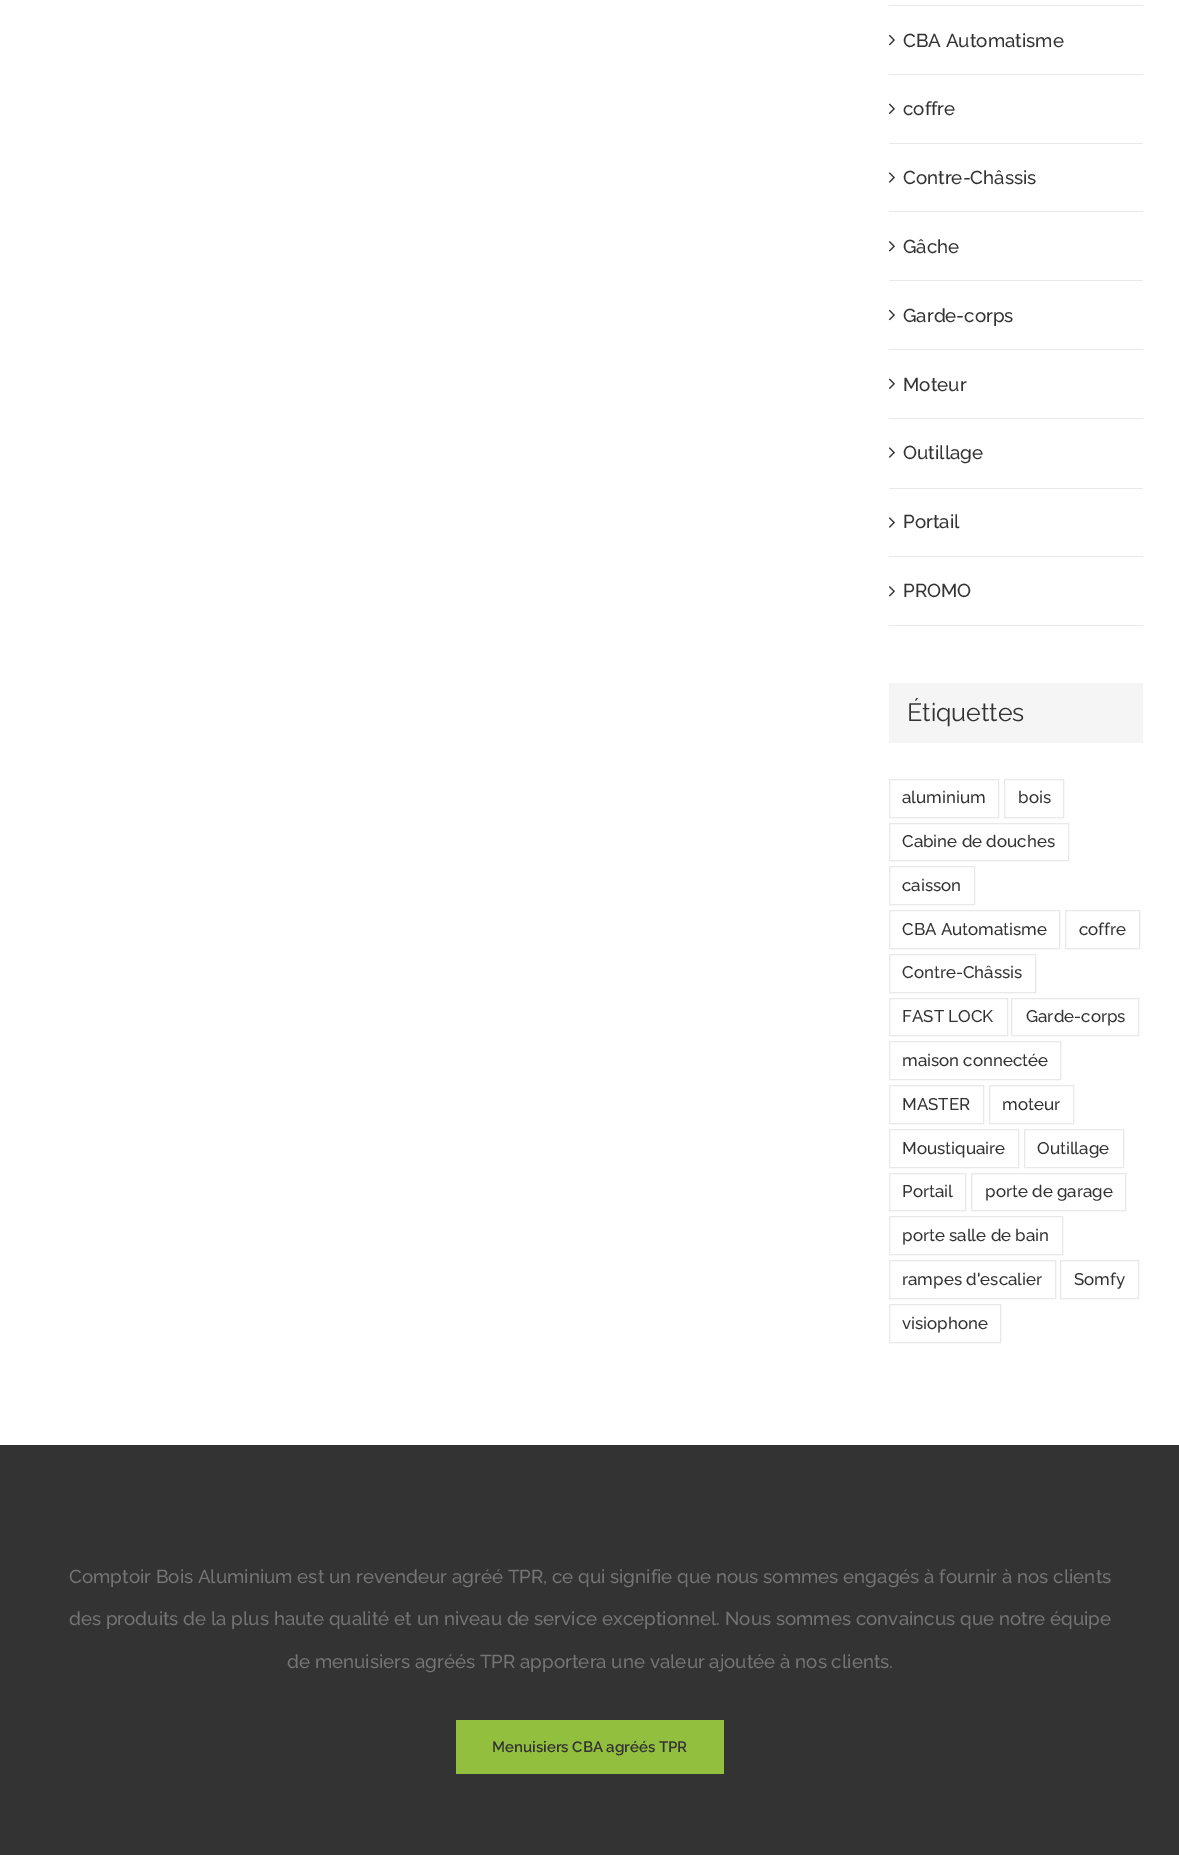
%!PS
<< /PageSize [1179 1855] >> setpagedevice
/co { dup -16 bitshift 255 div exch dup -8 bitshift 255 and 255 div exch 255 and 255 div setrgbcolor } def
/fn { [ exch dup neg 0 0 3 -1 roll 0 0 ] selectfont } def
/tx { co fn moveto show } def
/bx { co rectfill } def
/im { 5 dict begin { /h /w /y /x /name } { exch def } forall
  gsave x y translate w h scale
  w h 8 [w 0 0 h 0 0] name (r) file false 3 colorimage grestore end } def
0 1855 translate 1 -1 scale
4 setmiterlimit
0 0 1179 1855 16#FFFFFF bx
889 5 254 1 16#EAE8E8 bx
889 74 254 1 16#EAE8E8 bx
(media/1.raw) 888 34 7 12 im
889 143 254 1 16#EAE8E8 bx
(media/2.raw) 888 103 7 11 im
889 211 254 1 16#EAE8E8 bx
(media/3.raw) 888 172 7 11 im
889 280 254 1 16#EAE8E8 bx
(media/4.raw) 888 241 7 11 im
889 349 254 1 16#EAE8E8 bx
(media/1.raw) 888 309 7 12 im
889 418 254 1 16#EAE8E8 bx
(media/2.raw) 888 378 7 11 im
889 488 254 1 16#EAE8E8 bx
(media/3.raw) 888 447 7 11 im
889 556 254 1 16#EAE8E8 bx
(media/3.raw) 888 517 7 11 im
889 625 254 1 16#EAE8E8 bx
(media/4.raw) 888 586 7 11 im
889 683 254 60 16#F5F5F5 bx
16#EAE8E8 co
889.5 779.5 109 38 rectstroke
1004.5 779.5 59 38 rectstroke
889.5 823.5 179 37 rectstroke
889.5 866.5 85 38 rectstroke
889.5 910.5 170 38 rectstroke
1065.5 910.5 74 38 rectstroke
889.5 954.5 146 38 rectstroke
889.5 998.5 118 37 rectstroke
1011.5 998.5 127 37 rectstroke
889.5 1041.5 171 38 rectstroke
889.5 1085.5 94 38 rectstroke
989.5 1085.5 84 38 rectstroke
889.5 1129.5 129 38 rectstroke
1024.5 1129.5 99 38 rectstroke
889.5 1173.5 76 37 rectstroke
971.5 1173.5 154 37 rectstroke
889.5 1216.5 173 38 rectstroke
889.5 1260.5 166 38 rectstroke
1060.5 1260.5 78 38 rectstroke
889.5 1304.5 111 38 rectstroke
0 1445 1179 410 16#333333 bx
456 1720 268 54 16#93BF3E bx
(CBA Automatisme) 903 47 /Raleway-Medium 18.75 16#333333 tx
(coffre) 903 115 /Raleway-Medium 18.75 16#333333 tx
(Contre-Châssis) 903 184 /Raleway-Medium 18.75 16#333333 tx
(Gâche) 903 253 /Raleway-Medium 18.75 16#333333 tx
(Garde-corps) 903 322 /Raleway-Medium 18.75 16#333333 tx
(Moteur) 903 391 /Raleway-Medium 18.75 16#333333 tx
(Outillage) 903 459 /Raleway-Medium 18.75 16#333333 tx
(Portail) 903 528 /Raleway-Medium 18.75 16#333333 tx
(PROMO) 903 597 /Raleway-Medium 18.75 16#333333 tx
(Étiquettes) 907 721 /Raleway-Regular 25 16#333333 tx
(aluminium) 902 803 /Raleway-Medium 16.9 16#333333 tx
(bois) 1018 803 /Raleway-Medium 16.9 16#333333 tx
(Cabine de douches) 902 847 /Raleway-Medium 16.9 16#333333 tx
(caisson) 902 891 /Raleway-Medium 16.9 16#333333 tx
(CBA Automatisme) 902 935 /Raleway-Medium 16.9 16#333333 tx
(coffre) 1079 935 /Raleway-Medium 16.9 16#333333 tx
(Contre-Châssis) 902 978 /Raleway-Medium 16.9 16#333333 tx
(FAST LOCK) 902 1022 /Raleway-Medium 16.9 16#333333 tx
(Garde-corps) 1026 1022 /Raleway-Medium 16.9 16#333333 tx
(maison connectée) 902 1066 /Raleway-Medium 16.9 16#333333 tx
(MASTER) 902 1110 /Raleway-Medium 16.9 16#333333 tx
(moteur) 1002 1110 /Raleway-Medium 16.9 16#333333 tx
(Moustiquaire) 902 1154 /Raleway-Medium 16.9 16#333333 tx
(Outillage) 1037 1154 /Raleway-Medium 16.9 16#333333 tx
(Portail) 902 1197 /Raleway-Medium 16.9 16#333333 tx
(porte de garage) 985 1197 /Raleway-Medium 16.9 16#333333 tx
(porte salle de bain) 902 1241 /Raleway-Medium 16.9 16#333333 tx
(rampes d'escalier) 902 1285 /Raleway-Medium 16.9 16#333333 tx
(Somfy) 1074 1285 /Raleway-Medium 16.9 16#333333 tx
(visiophone) 902 1329 /Raleway-Medium 16.9 16#333333 tx
(Comptoir Bois Aluminium est un revendeur agréé TPR, ce qui signifie que nous sommes engagés à fournir à nos clients) 69 1583 /Raleway-Medium 18.75 16#747474 tx
(des produits de la plus haute qualité et un niveau de service exceptionnel. Nous sommes convaincus que notre équipe) 69 1625 /Raleway-Medium 18.75 16#747474 tx
(de menuisiers agréés TPR apportera une valeur ajoutée à nos clients.) 287 1668 /Raleway-Medium 18.75 16#747474 tx
(Menuisiers CBA agréés TPR) 492 1752 /Raleway-SemiBold 15 16#333333 tx
showpage
